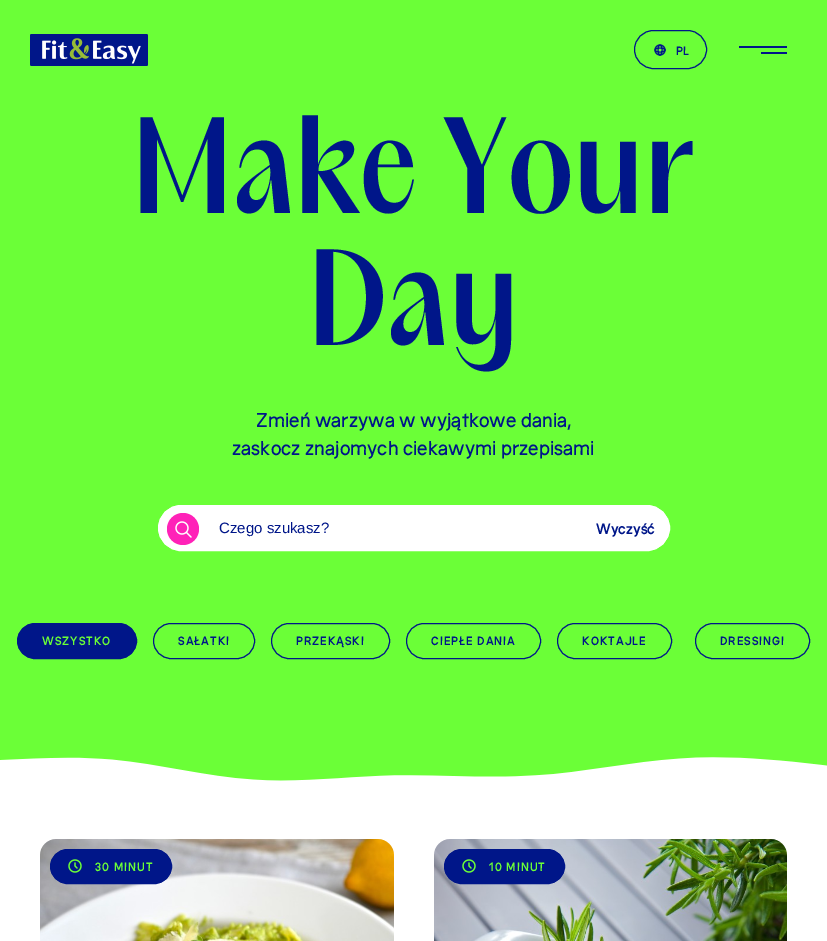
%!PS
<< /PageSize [827 941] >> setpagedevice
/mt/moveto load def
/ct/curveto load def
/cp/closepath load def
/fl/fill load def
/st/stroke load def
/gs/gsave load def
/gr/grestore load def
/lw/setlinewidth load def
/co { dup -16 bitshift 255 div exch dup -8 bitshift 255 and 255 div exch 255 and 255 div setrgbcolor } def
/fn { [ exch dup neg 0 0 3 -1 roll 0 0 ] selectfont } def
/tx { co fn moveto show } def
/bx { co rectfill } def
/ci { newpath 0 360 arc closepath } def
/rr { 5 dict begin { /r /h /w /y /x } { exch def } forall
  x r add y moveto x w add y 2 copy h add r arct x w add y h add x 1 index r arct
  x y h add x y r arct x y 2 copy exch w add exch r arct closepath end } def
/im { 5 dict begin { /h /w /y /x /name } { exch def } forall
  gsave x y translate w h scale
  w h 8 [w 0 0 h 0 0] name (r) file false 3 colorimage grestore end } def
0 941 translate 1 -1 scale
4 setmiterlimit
0 0 827 941 16#FFFFFF bx
0 0 827 781 16#6BFF37 bx
(media/1.raw) 30 34 118 32 im
16#001689 co
634.5 30.5 72 38 19 rr st
1.1 lw
660 50 5 ci st
660 45 mt 661 45 662 47 662 50 ct 662 53 661 55 660 55 ct 659 55 658 53 658 50 ct 658 47 659 45 660 45 ct cp st
660 48 mt 663 48 665 49 665 50 ct 665 51 663 52 660 52 ct 657 52 655 51 655 50 ct 655 49 657 48 660 48 ct cp st
16#FFFFFF co
158.5 505.5 511 45 22.5 rr gs fl gr
1 lw
st
16#FF22B8 co
183 529 16 ci fl
(media/2.raw) 175 521 17 17 im
16#001689 co
17.5 623.5 119 35 17.5 rr gs fl gr
st
153.5 623.5 101 35 17.5 rr st
271.5 623.5 118 35 17.5 rr st
406.5 623.5 134 35 17.5 rr st
557.5 623.5 114 35 17.5 rr st
695.5 623.5 114 35 17.5 rr st
(media/3.raw) 0 757 827 40 im
(media/4.raw) 40 839 354 102 im
50.5 849.5 121 34 17 rr gs fl gr
st
(media/5.raw) 68 859 14 14 im
(media/6.raw) 434 839 353 102 im
444.5 849.5 120 34 17 rr gs fl gr
st
(media/5.raw) 462 859 14 14 im
739 46 48 2 16#001689 bx
761 52 26 2 16#001689 bx
(PL) 676 55 /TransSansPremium-SemiBold 12 16#001689 tx
(Make Your) 131 213 /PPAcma-SemiBold 124 16#001689 tx
(Day) 307 345 /PPAcma-SemiBold 124 16#001689 tx
(Zmień warzywa w wyjątkowe dania,) 256 427 /TransSansPremium-Medium 20 16#001689 tx
(zaskocz znajomych ciekawymi przepisami) 232 455 /TransSansPremium-Medium 20 16#001689 tx
(Czego szukasz?) 219 533 /LiberationSans-Regular 15 16#001689 tx
(Wyczyść) 596 534 /TransSansPremium-SemiBold 15 16#001689 tx
/TransSansPremium-SemiBold 12 fn
16#6BFF37 co
42 645 mt 1 0 (WSZYSTKO) ashow
16#001689 co
178 645 mt 1 0 (SAŁATKI) ashow
296 645 mt 1 0 (PRZEKĄSKI) ashow
431 645 mt 1 0 (CIEPŁE DANIA) ashow
582 645 mt 1 0 (KOKTAJLE) ashow
720 645 mt 1 0 (DRESSINGI) ashow
16#6BFF37 co
95 871 mt 1 0 (30 MINUT) ashow
489 871 mt 1 0 (10 MINUT) ashow
showpage
